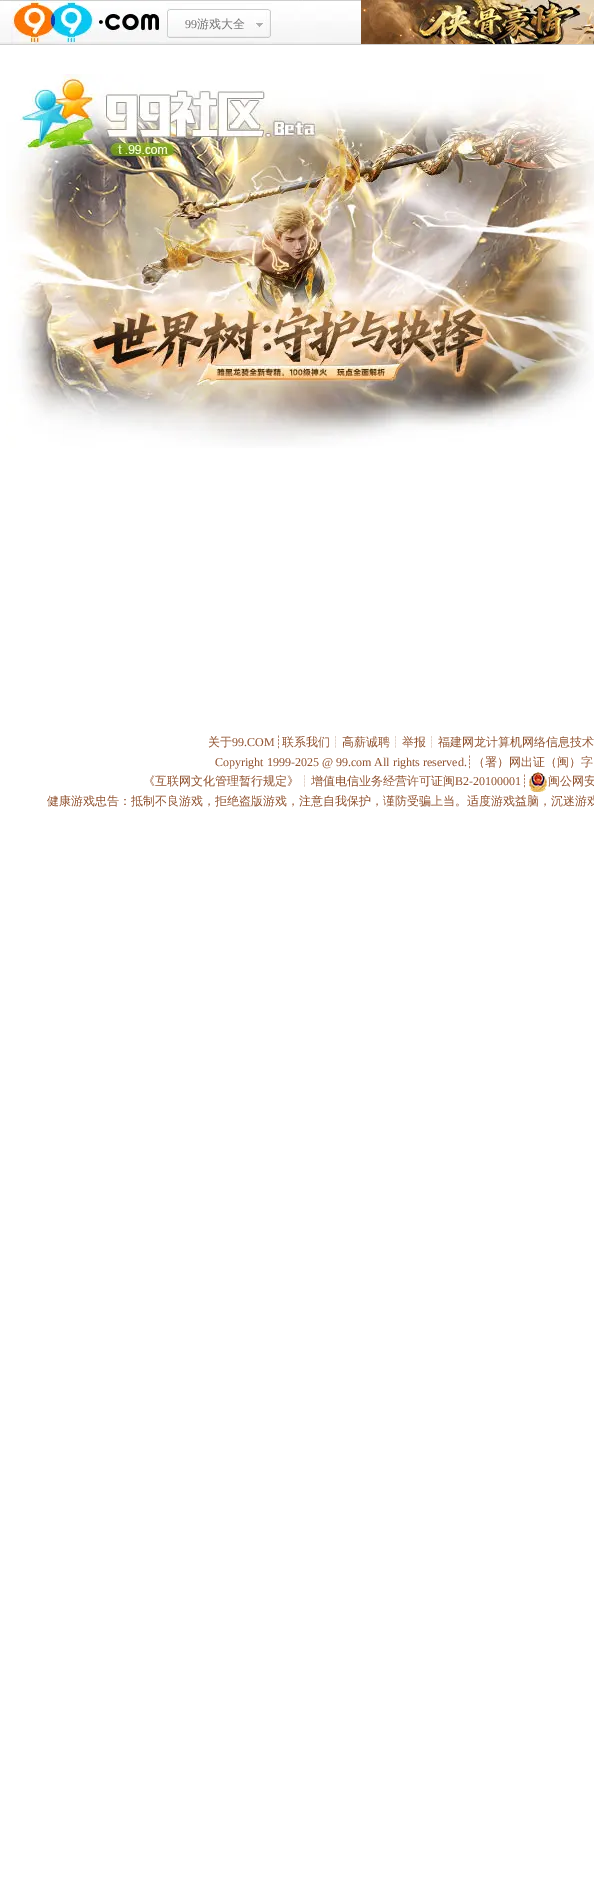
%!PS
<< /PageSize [594 1894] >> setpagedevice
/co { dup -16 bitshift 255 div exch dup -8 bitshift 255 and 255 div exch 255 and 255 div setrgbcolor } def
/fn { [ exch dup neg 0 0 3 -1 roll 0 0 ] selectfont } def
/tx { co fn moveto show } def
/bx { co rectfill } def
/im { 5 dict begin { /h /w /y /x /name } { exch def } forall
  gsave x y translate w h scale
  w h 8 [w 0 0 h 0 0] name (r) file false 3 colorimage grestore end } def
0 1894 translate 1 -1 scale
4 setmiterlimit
0 0 594 1894 16#FFFFFF bx
(media/1.raw) 0 0 594 45 im
(media/2.raw) 11 0 148 45 im
(media/3.raw) 166 3 106 39 im
(media/4.raw) 254 9 18 35 im
(media/5.raw) 361 0 233 44 im
(media/6.raw) 6 74 588 374 im
(media/7.raw) 529 772 18 20 im
(99) 185 28 /LiberationSerif-Regular 12 16#727272 tx
(游戏大全) 197 28 /WenQuanYiZenHei-Medium 12 16#727272 tx
(关于) 208 746 /WenQuanYiZenHei-Medium 12 16#91522F tx
(99.COM) 232 746 /LiberationSerif-Regular 12 16#91522F tx
(┊) 275 746 /DejaVuSans-Regular 12 16#91522F tx
(联系我们┊高薪诚聘┊举报┊福建网龙计算机网络信息技术) 282 746 /WenQuanYiZenHei-Medium 12 16#91522F tx
(Copyright 1999-2025 @ 99.com All rights reserved.) 215 766 /LiberationSerif-Regular 12 16#91522F tx
(┊) 466 766 /DejaVuSans-Regular 12 16#91522F tx
(（署）网出证（闽）字) 473 766 /WenQuanYiZenHei-Medium 12 16#91522F tx
(《互联网文化管理暂行规定》┊增值电信业务经营许可证闽) 143 785 /WenQuanYiZenHei-Medium 12 16#91522F tx
(B2-20100001) 455 785 /LiberationSerif-Regular 12 16#91522F tx
(┊) 521 785 /DejaVuSans-Regular 12 16#91522F tx
(闽公网安) 548 785 /WenQuanYiZenHei-Medium 12 16#91522F tx
(健康游戏忠告：抵制不良游戏，拒绝盗版游戏，注意自我保护，谨防受骗上当。适度游戏益脑，沉迷游戏) 47 805 /WenQuanYiZenHei-Medium 12 16#91522F tx
showpage
